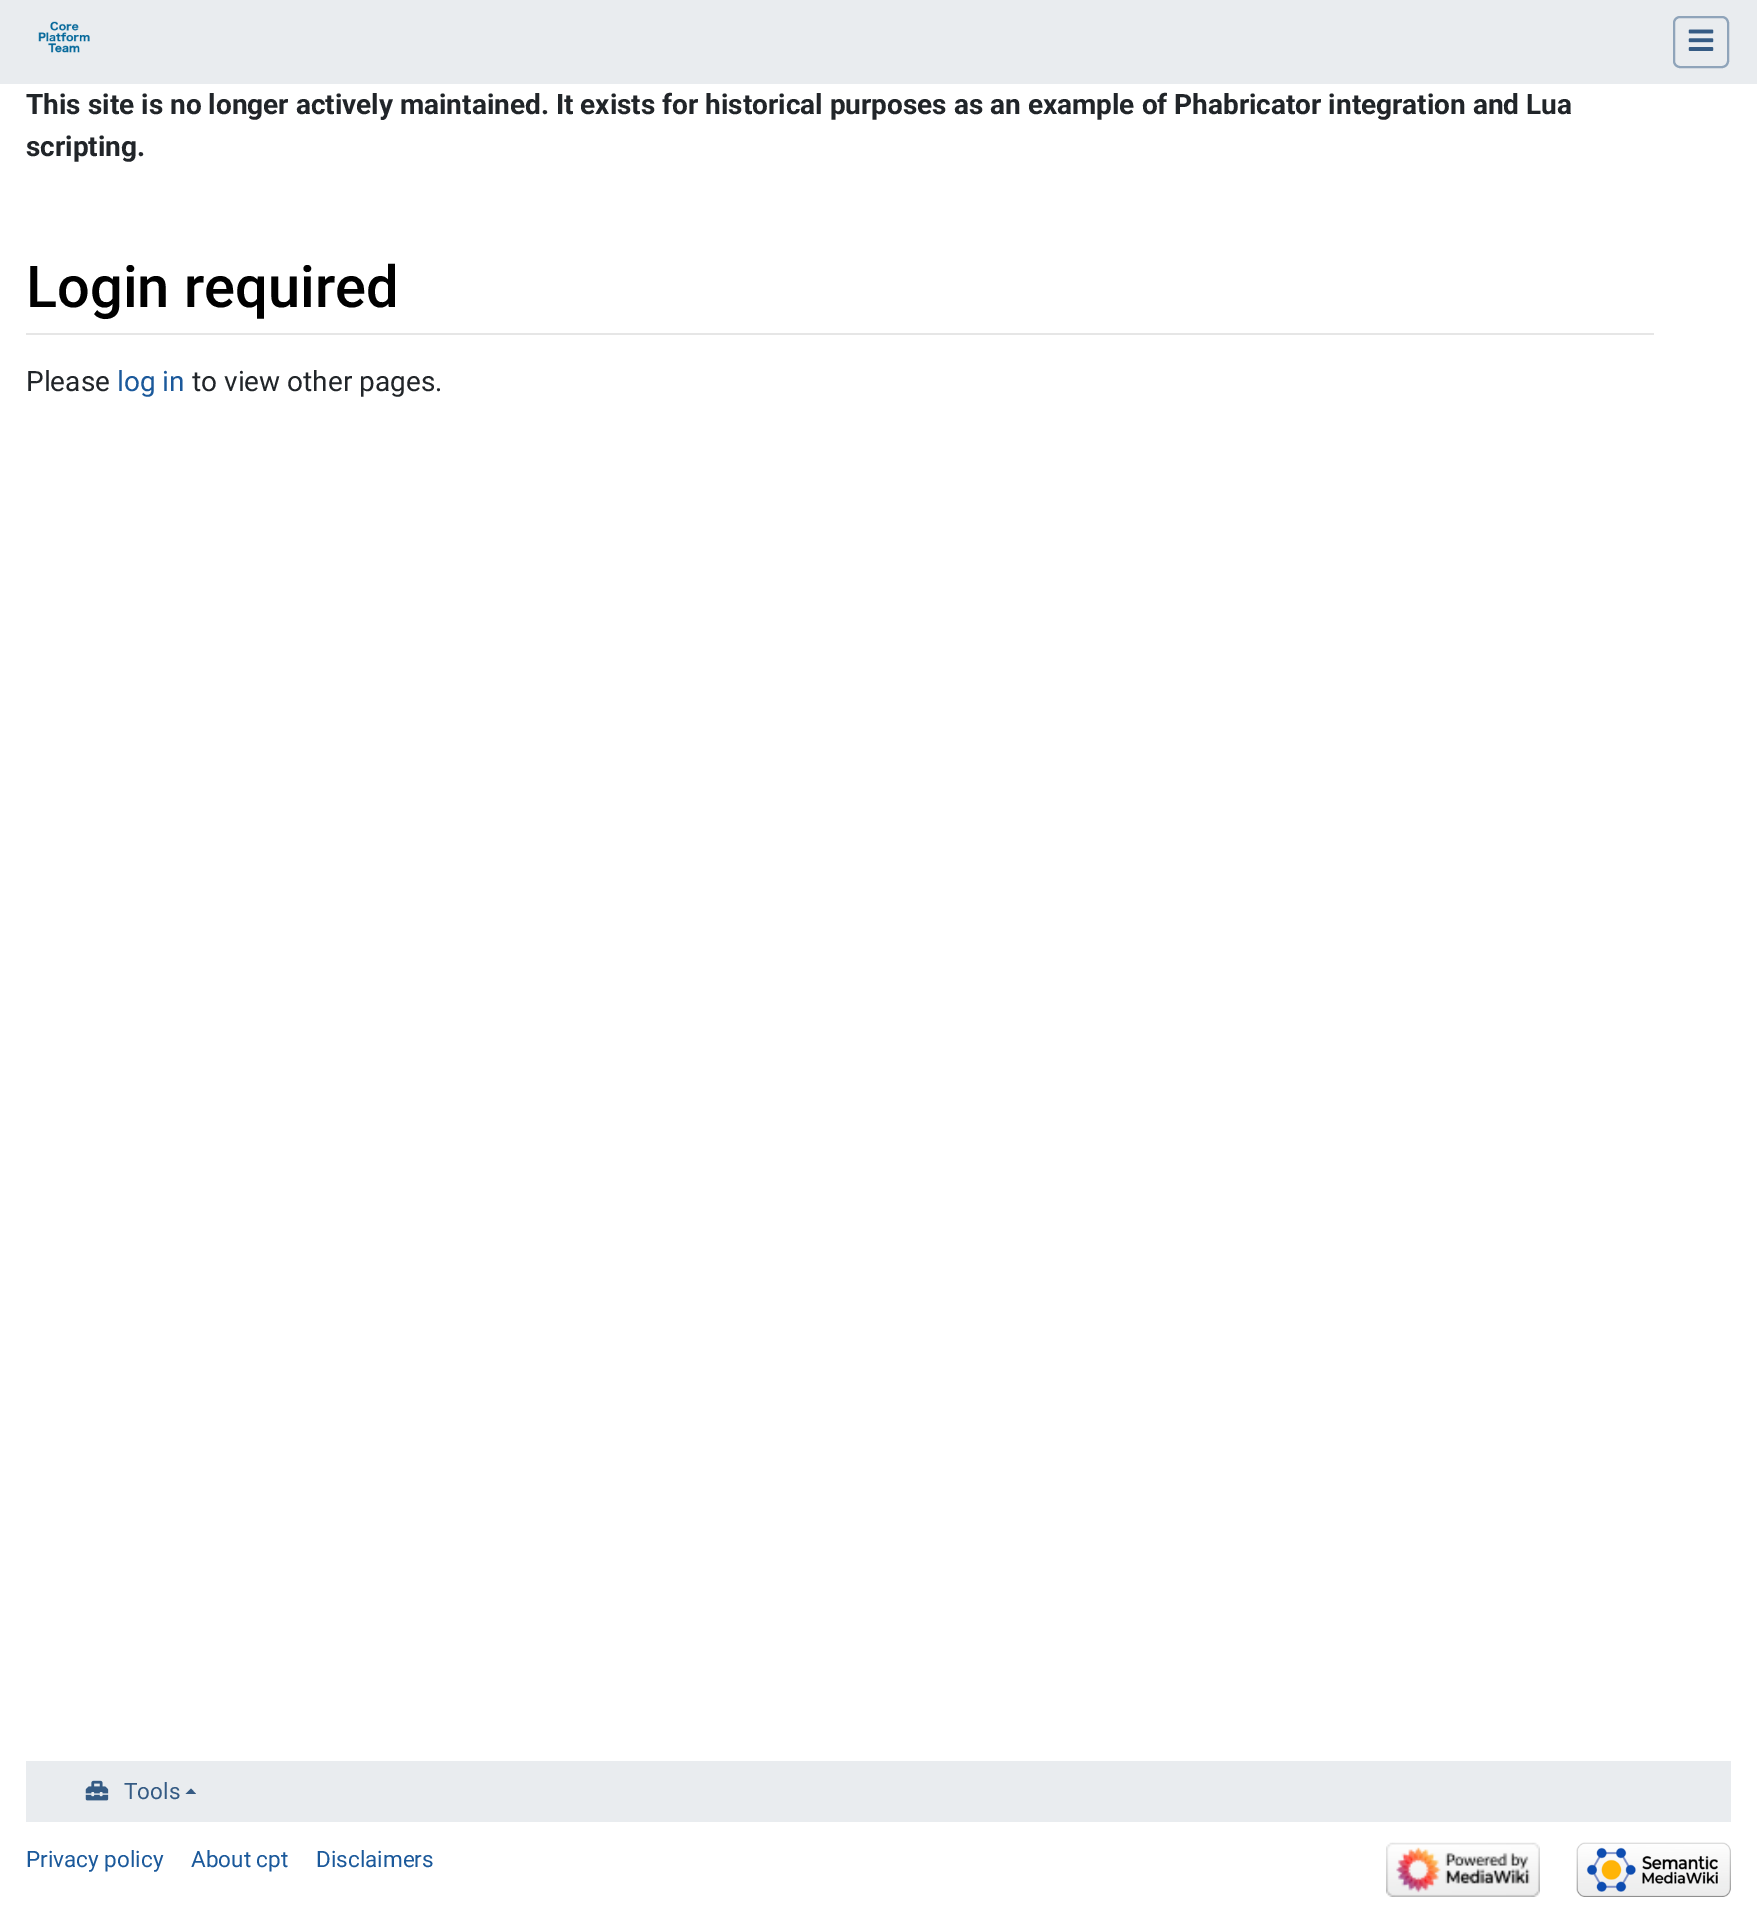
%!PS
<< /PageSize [1757 1917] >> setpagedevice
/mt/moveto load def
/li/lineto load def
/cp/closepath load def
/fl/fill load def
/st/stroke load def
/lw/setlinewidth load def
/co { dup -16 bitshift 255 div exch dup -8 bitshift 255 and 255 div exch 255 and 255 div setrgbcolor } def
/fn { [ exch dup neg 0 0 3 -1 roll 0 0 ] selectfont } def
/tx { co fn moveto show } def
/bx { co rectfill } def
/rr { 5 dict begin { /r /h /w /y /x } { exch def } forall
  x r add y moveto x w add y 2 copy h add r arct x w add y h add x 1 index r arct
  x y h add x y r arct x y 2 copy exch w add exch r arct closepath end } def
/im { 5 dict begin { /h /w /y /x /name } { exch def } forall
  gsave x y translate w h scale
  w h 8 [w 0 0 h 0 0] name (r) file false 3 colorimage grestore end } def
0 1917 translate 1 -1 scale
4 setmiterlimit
0 0 1757 1917 16#FFFFFF bx
0 0 1757 84 16#E9ECEF bx
(media/1.raw) 38 21 52 32 im
16#8FA4BA co
2 lw
1674 17 54 50 6 rr st
(media/2.raw) 1688 29 26 22 im
26 333 1628 2 16#E6E6E6 bx
26 1761 1705 61 16#E9ECEF bx
(media/3.raw) 85 1780 24 21 im
16#355B84 co
196 1794 mt 185.5 1794 li 191 1788.5 li cp fl
(media/4.raw) 1386 1842 154 55 im
(media/5.raw) 1576 1842 155 55 im
(This site is no longer actively maintained. It exists for historical purposes as an example of Phabricator integration and Lua) 26 114 /Roboto-Bold 28 16#212529 tx
(scripting.) 26 156 /Roboto-Bold 28 16#212529 tx
(Login required) 26 307 /Roboto-Medium 57.75 16#000000 tx
(Please) 26 391 /Roboto-Regular 28 16#212529 tx
(log in) 117 391 /Roboto-Regular 28 16#1B599B tx
(to view other pages.) 192 391 /Roboto-Regular 28 16#212529 tx
(Tools) 124 1799 /Roboto-Regular 22.5 16#355B84 tx
(Privacy policy) 26 1867 /Roboto-Regular 22.5 16#1B599B tx
(About cpt) 191 1867 /Roboto-Regular 22.5 16#1B599B tx
(Disclaimers) 316 1867 /Roboto-Regular 22.5 16#1B599B tx
showpage
